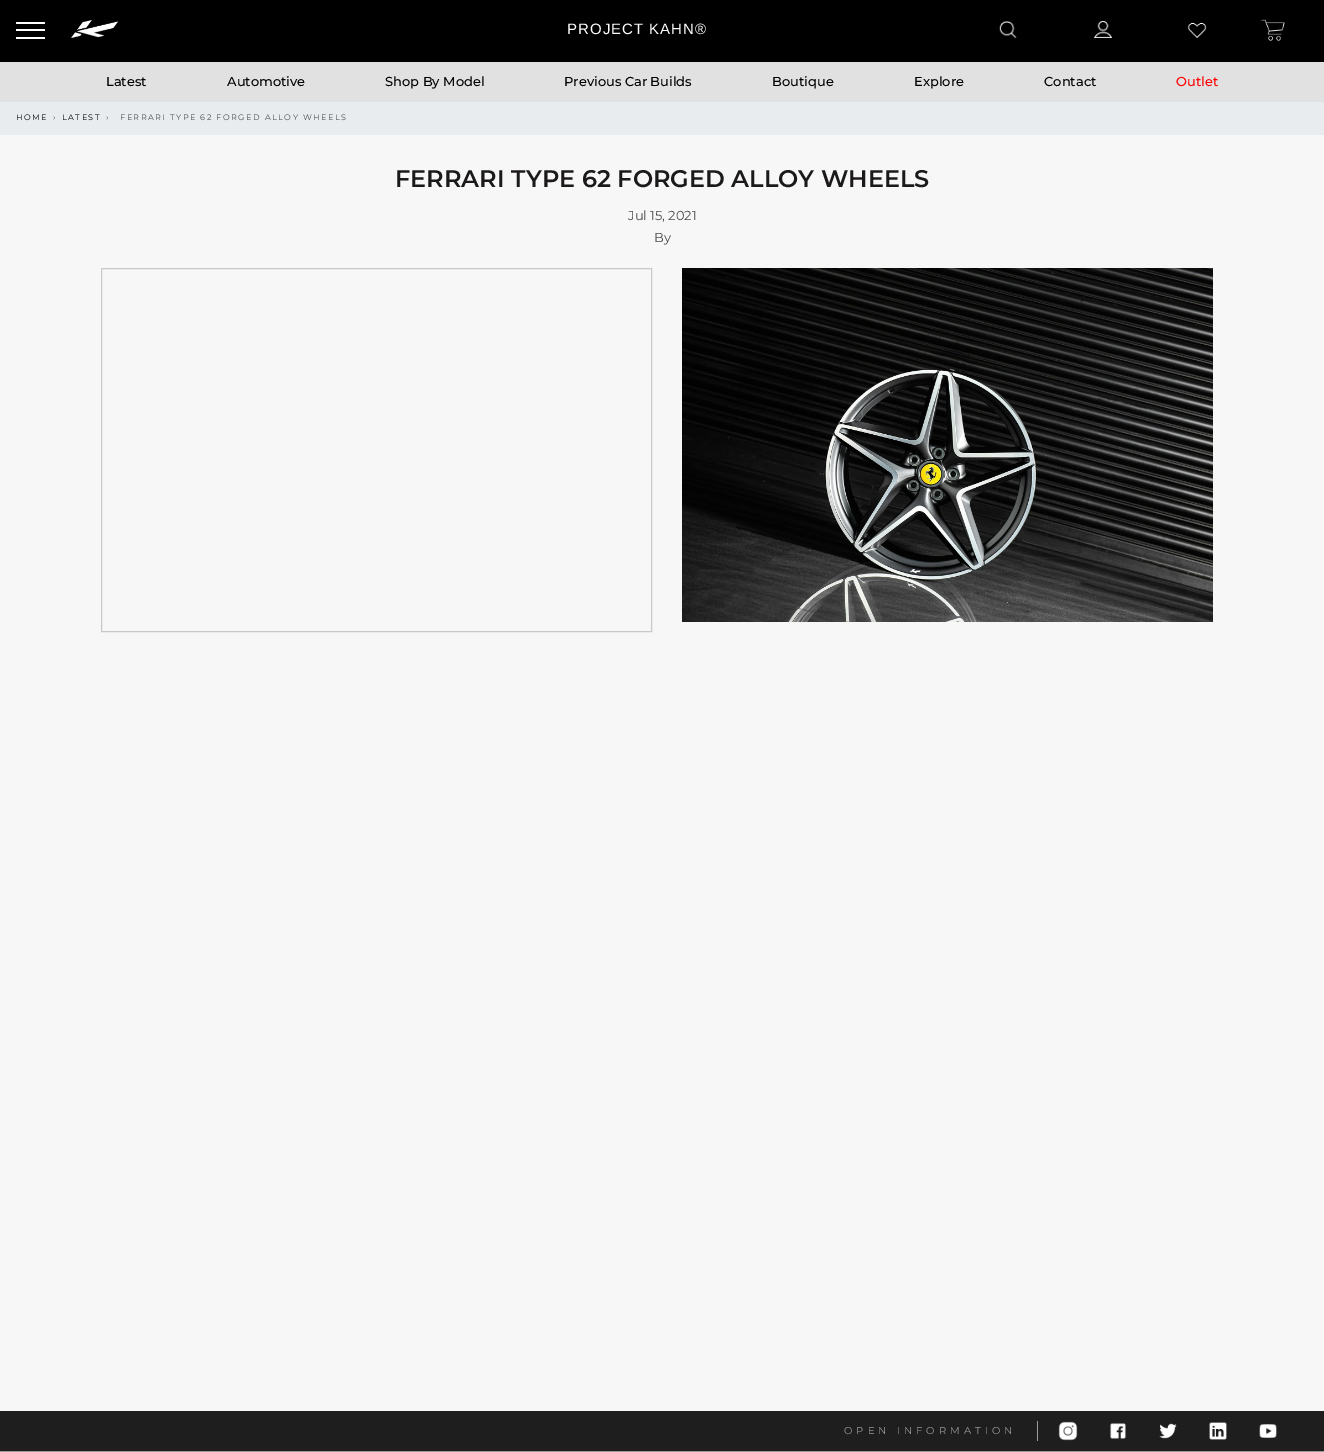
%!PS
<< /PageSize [1324 1452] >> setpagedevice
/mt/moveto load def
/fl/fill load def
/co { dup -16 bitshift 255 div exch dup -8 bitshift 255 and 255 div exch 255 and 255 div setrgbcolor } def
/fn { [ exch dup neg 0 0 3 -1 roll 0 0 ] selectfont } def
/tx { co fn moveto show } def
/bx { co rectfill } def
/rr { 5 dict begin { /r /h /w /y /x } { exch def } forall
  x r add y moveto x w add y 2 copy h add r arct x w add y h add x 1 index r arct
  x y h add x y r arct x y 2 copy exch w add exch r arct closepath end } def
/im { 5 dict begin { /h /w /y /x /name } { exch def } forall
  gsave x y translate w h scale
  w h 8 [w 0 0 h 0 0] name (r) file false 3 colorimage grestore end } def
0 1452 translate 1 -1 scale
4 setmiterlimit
0 0 1324 1452 16#F7F7F7 bx
0 0 1324 62 16#000000 bx
16#FFFFFF co
16 22 29 2 1 rr fl
16 29 29 2 16#FFFFFF bx
16 37 29 2 16#FFFFFF bx
(media/1.raw) 71 20 47 18 im
(media/2.raw) 999 20 18 19 im
(media/3.raw) 1094 21 18 17 im
(media/4.raw) 1187 22 20 17 im
(media/5.raw) 1261 19 24 22 im
0 62 1324 40 16#E1E1E1 bx
0 102 1324 33 16#E9ECEF bx
16#C9C9C9 co
101.5 268.5 550 363 rectstroke
(media/6.raw) 682 268 531 354 im
0 1411 1324 40 16#1E1E1E bx
0 1451 1324 1 16#9B9B9B bx
1037 1421 1 20 16#9B9B9B bx
(media/7.raw) 1058 1421 20 20 im
(media/8.raw) 1110 1423 16 16 im
(media/9.raw) 1159 1423 18 16 im
(media/10.raw) 1209 1422 18 18 im
(media/11.raw) 1259 1424 18 14 im
/LiberationSans-Regular 15 fn
16#FFFFFF co
567 34 mt 1 0 (PROJECT KAHN®) ashow
(Latest) 106 86 /Montserrat-Medium 13 16#000000 tx
(Automotive) 227 86 /Montserrat-Medium 13 16#000000 tx
(Shop By Model) 385 86 /Montserrat-Medium 13 16#000000 tx
(Previous Car Builds) 564 86 /Montserrat-Medium 13 16#000000 tx
(Boutique) 772 86 /Montserrat-Medium 13 16#000000 tx
(Explore) 914 86 /Montserrat-Medium 13 16#000000 tx
(Contact) 1044 86 /Montserrat-Medium 13 16#000000 tx
(Outlet) 1176 86 /Montserrat-Medium 13 16#FF0000 tx
/Montserrat-Regular 8 fn
16#000000 co
16 120 mt 1.5 0 (HOME) ashow
16#4C4C4C co
53 120 mt 1.5 0 (›) ashow
16#000000 co
62 120 mt 1.5 0 (LATEST) ashow
16#4C4C4C co
106 120 mt 1.5 0 (›) ashow
120 120 mt 1.5 0 (FERRARI TYPE 62 FORGED ALLOY WHEELS) ashow
(FERRARI TYPE 62 FORGED ALLOY WHEELS) 395 187 /Montserrat-SemiBold 24 16#1B1919 tx
(Jul 15, 2021) 628 220 /Montserrat-Regular 13 16#4C4C4C tx
(By) 654 242 /Montserrat-Regular 13 16#4C4C4C tx
/Montserrat-Regular 10 fn
16#9B9B9B co
844 1434 mt 4 0 (OPEN INFORMATION) ashow
showpage
